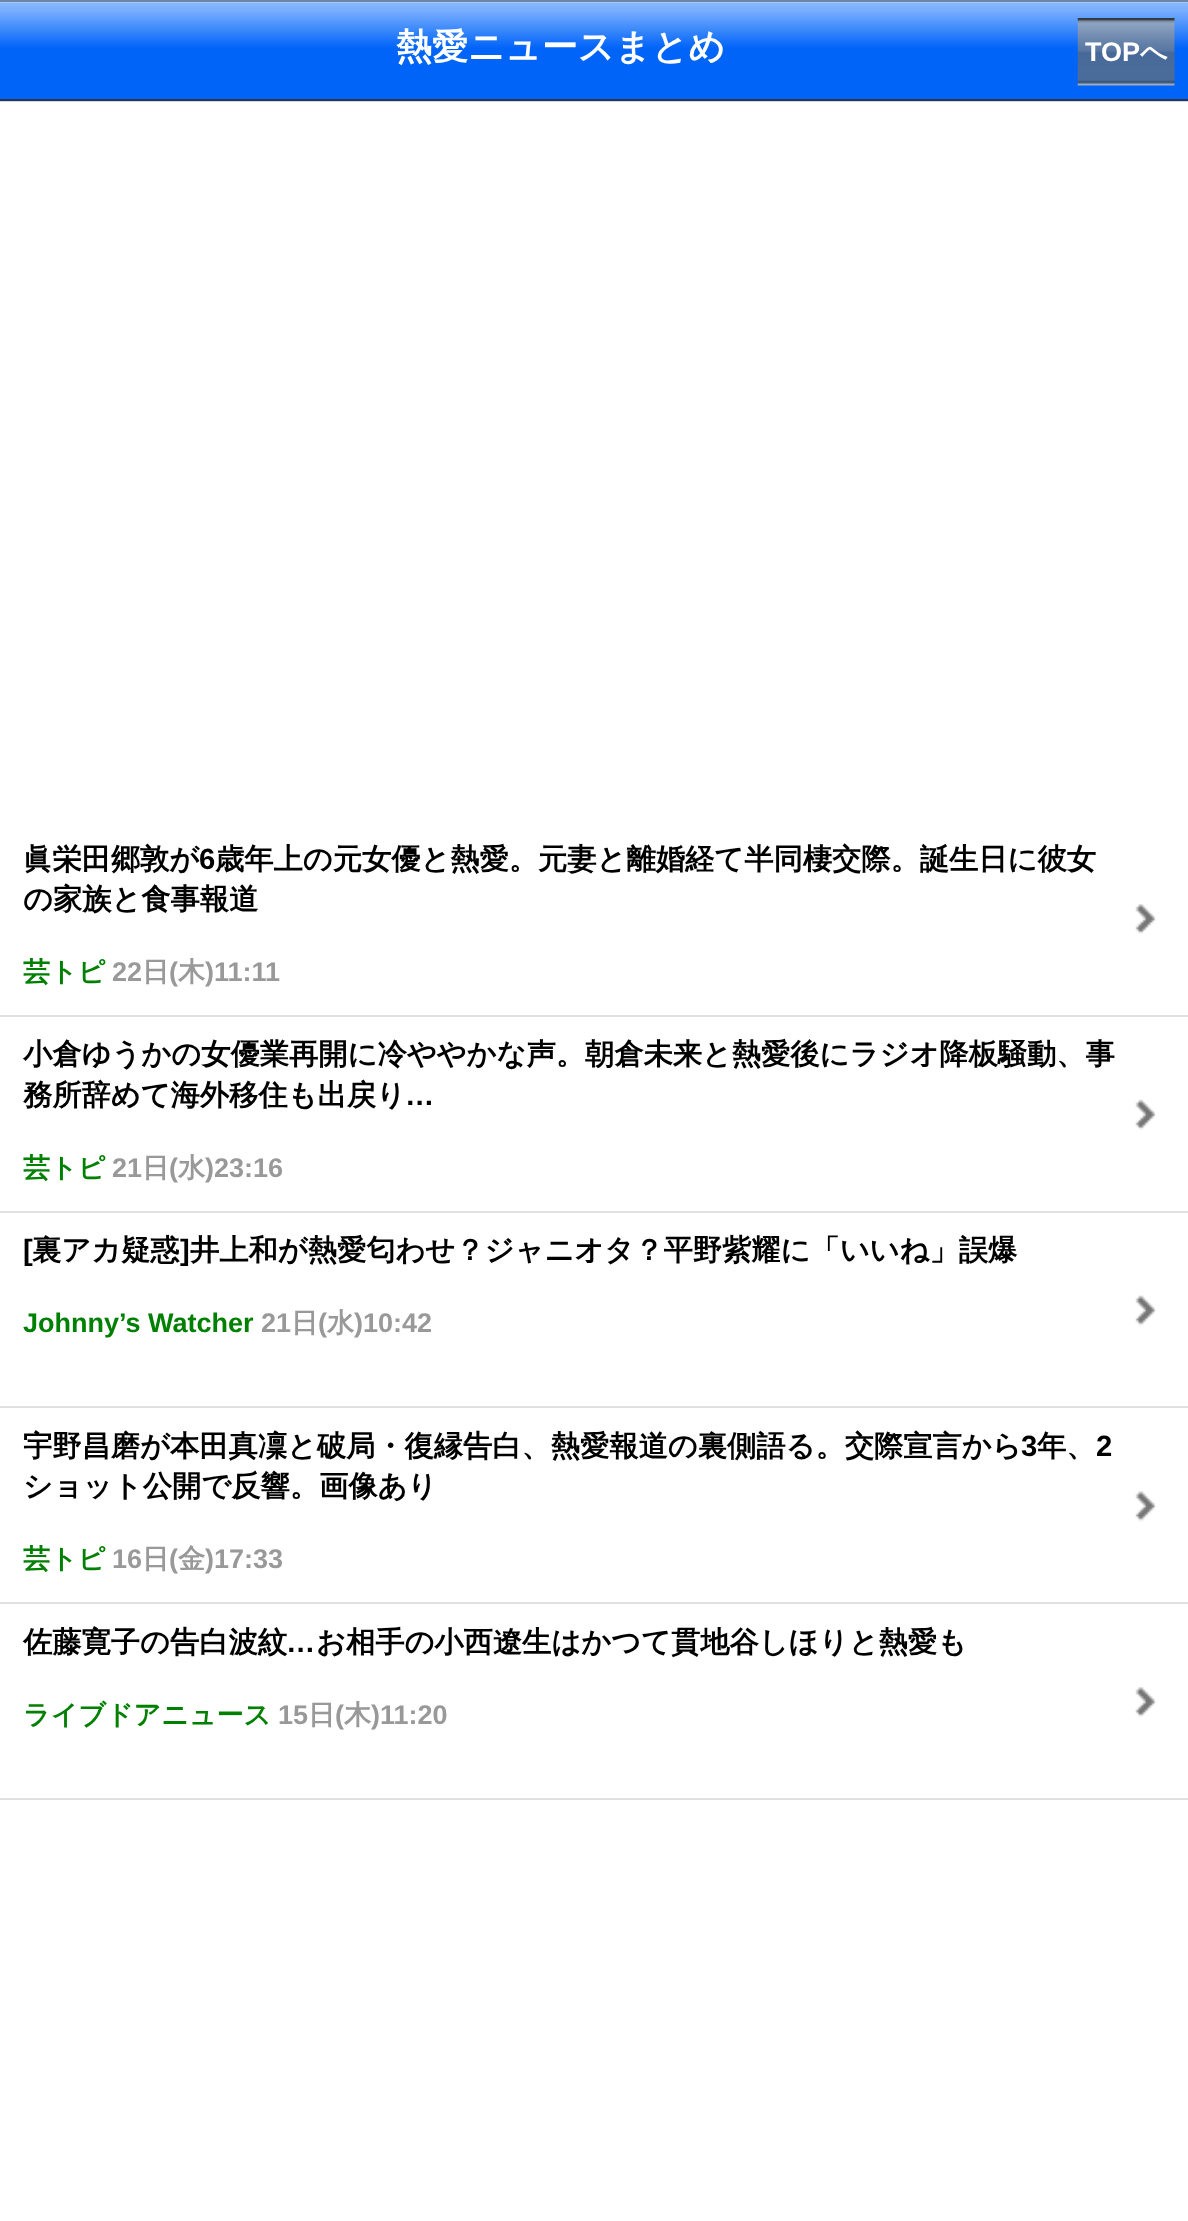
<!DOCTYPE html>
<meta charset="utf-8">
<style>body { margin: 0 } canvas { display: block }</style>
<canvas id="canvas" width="1188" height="2221"></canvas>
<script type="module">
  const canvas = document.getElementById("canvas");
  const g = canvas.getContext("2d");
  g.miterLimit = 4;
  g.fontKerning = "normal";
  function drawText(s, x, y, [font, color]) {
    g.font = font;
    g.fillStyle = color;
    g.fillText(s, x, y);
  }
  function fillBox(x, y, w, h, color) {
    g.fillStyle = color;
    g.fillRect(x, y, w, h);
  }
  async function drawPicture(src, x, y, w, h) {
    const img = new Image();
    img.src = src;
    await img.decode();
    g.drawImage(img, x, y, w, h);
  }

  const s1 = ["bold 36px WenQuanYi Zen Hei", "#FFFFFF"];
  const s2 = ["bold 27px Liberation Sans", "#FFFFFF"];
  const s3 = ["bold 27px WenQuanYi Zen Hei", "#FFFFFF"];
  const s4 = ["bold 29.25px WenQuanYi Zen Hei", "#000000"];
  const s5 = ["bold 29.25px Liberation Sans", "#000000"];
  const s6 = ["bold 27px WenQuanYi Zen Hei", "#008000"];
  const s7 = ["bold 27px Liberation Sans", "#999999"];
  const s8 = ["bold 27px WenQuanYi Zen Hei", "#999999"];
  const s9 = ["bold 27px Liberation Sans", "#008000"];

  fillBox(0, 0, 1188, 2221, "#FFFFFF");
  await drawPicture("pic1.png", 0, 2, 1188, 100);
  fillBox(0, 0, 1188, 2, "#6D84A2");
  fillBox(0, 99, 1188, 2, "#2D3642");
  drawText("熱愛ニュースまとめ", 396, 59, s1);
  await drawPicture("pic2.png", 1077, 18, 98, 68);
  drawText("TOP", 1085, 61, s2);
  drawText("へ", 1140, 61, s3);
  fillBox(0, 1015, 1188, 2, "#E0E0E0");
  await drawPicture("pic3.png", 1135, 904, 22, 30);
  drawText("眞栄田郷敦が", 23, 869, s4);
  drawText("6", 199, 869, s5);
  drawText("歳年上の元女優と熱愛。元妻と離婚経て半同棲交際。誕生日に彼女", 215, 869, s4);
  drawText("の家族と食事報道", 23, 909, s4);
  drawText("芸トピ", 23, 981, s6);
  drawText("22", 112, 981, s7);
  drawText("日", 142, 981, s8);
  drawText("(", 169, 981, s7);
  drawText("木", 178, 981, s8);
  drawText(")11:11", 205, 981, s7);
  fillBox(0, 1211, 1188, 2, "#E0E0E0");
  await drawPicture("pic4.png", 1135, 1099, 22, 31);
  drawText("小倉ゆうかの女優業再開に冷ややかな声。朝倉未来と熱愛後にラジオ降板騒動、事", 23, 1064, s4);
  drawText("務所辞めて海外移住も出戻り", 23, 1105, s4);
  drawText("…", 405, 1105, s5);
  drawText("芸トピ", 23, 1177, s6);
  drawText("21", 112, 1177, s7);
  drawText("日", 142, 1177, s8);
  drawText("(", 169, 1177, s7);
  drawText("水", 178, 1177, s8);
  drawText(")23:16", 205, 1177, s7);
  fillBox(0, 1406, 1188, 2, "#E0E0E0");
  await drawPicture("pic5.png", 1135, 1295, 22, 31);
  drawText("[", 23, 1260, s5);
  drawText("裏アカ疑惑", 32, 1260, s4);
  drawText("]", 180, 1260, s5);
  drawText("井上和が熱愛匂わせ？ジャニオタ？平野紫耀に「いいね」誤爆", 190, 1260, s4);
  drawText("Johnny’s Watcher", 23, 1332, s9);
  drawText("21", 261, 1332, s7);
  drawText("日", 291, 1332, s8);
  drawText("(", 318, 1332, s7);
  drawText("水", 327, 1332, s8);
  drawText(")10:42", 354, 1332, s7);
  fillBox(0, 1602, 1188, 2, "#E0E0E0");
  await drawPicture("pic6.png", 1135, 1491, 22, 31);
  drawText("宇野昌磨が本田真凜と破局・復縁告白、熱愛報道の裏側語る。交際宣言から", 23, 1456, s4);
  drawText("3", 1021, 1456, s5);
  drawText("年、", 1037, 1456, s4);
  drawText("2", 1096, 1456, s5);
  drawText("ショット公開で反響。画像あり", 23, 1496, s4);
  drawText("芸トピ", 23, 1568, s6);
  drawText("16", 112, 1568, s7);
  drawText("日", 142, 1568, s8);
  drawText("(", 169, 1568, s7);
  drawText("金", 178, 1568, s8);
  drawText(")17:33", 205, 1568, s7);
  fillBox(0, 1798, 1188, 2, "#E0E0E0");
  await drawPicture("pic3.png", 1135, 1687, 22, 30);
  drawText("佐藤寛子の告白波紋", 23, 1652, s4);
  drawText("…", 286, 1652, s5);
  drawText("お相手の小西遼生はかつて貫地谷しほりと熱愛も", 316, 1652, s4);
  drawText("ライブドアニュース", 23, 1724, s6);
  drawText("15", 278, 1724, s7);
  drawText("日", 308, 1724, s8);
  drawText("(", 335, 1724, s7);
  drawText("木", 344, 1724, s8);
  drawText(")11:20", 371, 1724, s7);
</script>
